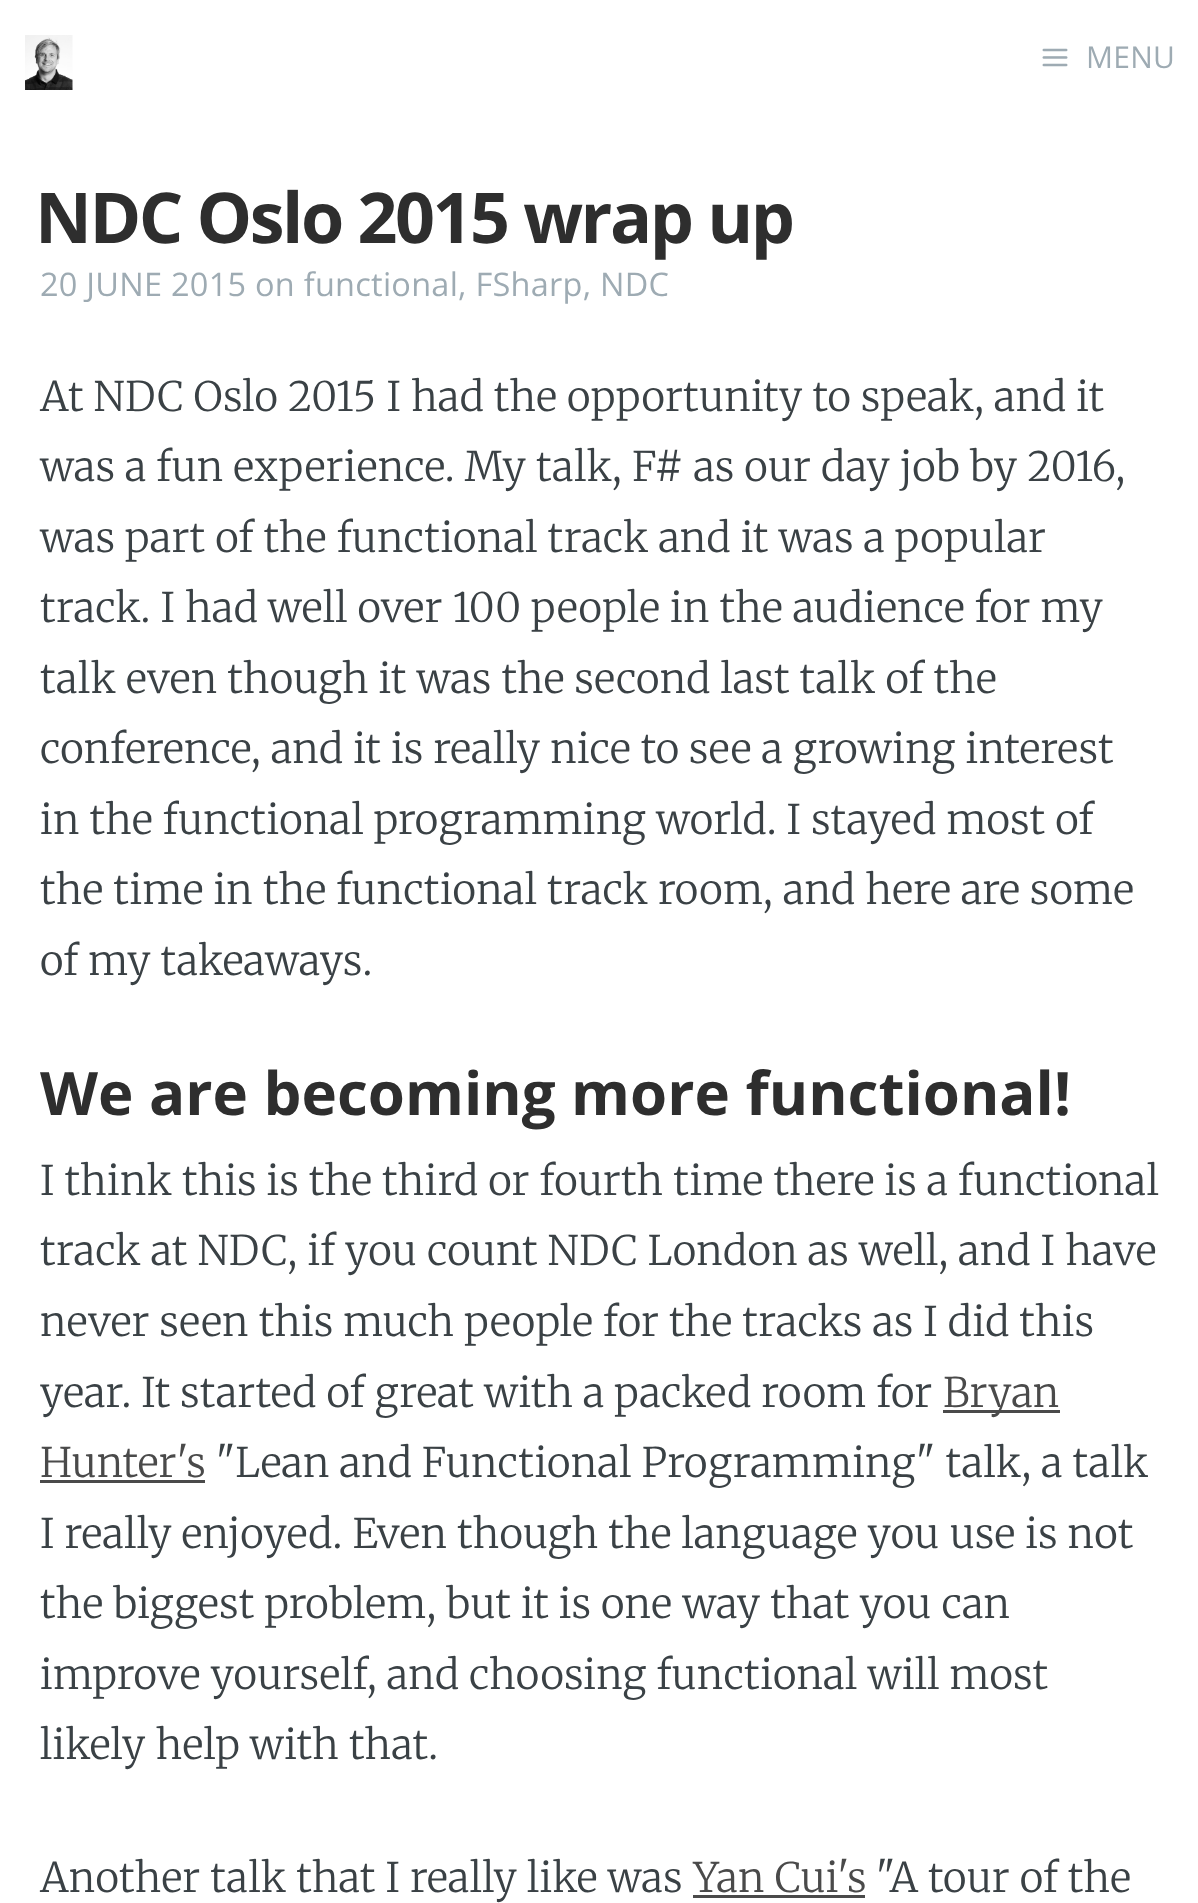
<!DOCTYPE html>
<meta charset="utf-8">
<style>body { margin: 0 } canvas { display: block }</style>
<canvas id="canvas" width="1198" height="1903"></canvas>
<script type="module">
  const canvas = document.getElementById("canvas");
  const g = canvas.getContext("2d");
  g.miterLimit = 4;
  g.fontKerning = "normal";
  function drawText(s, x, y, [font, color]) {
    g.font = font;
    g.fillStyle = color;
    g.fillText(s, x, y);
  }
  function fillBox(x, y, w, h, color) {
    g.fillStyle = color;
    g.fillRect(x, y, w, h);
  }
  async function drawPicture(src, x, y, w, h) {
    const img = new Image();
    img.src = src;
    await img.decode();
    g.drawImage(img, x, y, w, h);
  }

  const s1 = ["30px Open Sans", "#9EABB3"];
  const s2 = ["bold 70px Open Sans", "#2E2E2E"];
  const s3 = ["32.5px Open Sans", "#9EABB3"];
  const s4 = ["300 40.6px Merriweather", "#3A4145"];
  const s5 = ["bold 60px Open Sans", "#2E2E2E"];
  const s6 = ["300 40.6px Merriweather", "#4A4A4A"];

  fillBox(0, 0, 1198, 1903, "#FFFFFF");
  await drawPicture("pic1.png", 25, 35, 48, 55);
  await drawPicture("pic2.png", 1042, 48, 26, 19);
  g.letterSpacing = "0.25px";
  drawText("MENU", 1086, 68, s1);
  g.letterSpacing = "-2.5px";
  drawText("NDC Oslo 2015 wrap up", 35, 243, s2);
  g.letterSpacing = "0.25px";
  drawText("20 JUNE 2015 on functional, FSharp, NDC", 40, 296, s3);
  drawText("At NDC Oslo 2015 I had the opportunity to speak, and it", 40, 411, s4);
  drawText("was a fun experience. My talk, F# as our day job by 2016,", 40, 481, s4);
  drawText("was part of the functional track and it was a popular", 40, 552, s4);
  drawText("track. I had well over 100 people in the audience for my", 40, 622, s4);
  drawText("talk even though it was the second last talk of the", 40, 693, s4);
  drawText("conference, and it is really nice to see a growing interest", 40, 763, s4);
  drawText("in the functional programming world. I stayed most of", 40, 834, s4);
  drawText("the time in the functional track room, and here are some", 40, 904, s4);
  drawText("of my takeaways.", 40, 975, s4);
  g.letterSpacing = "0px";
  drawText("We are becoming more functional!", 40, 1115, s5);
  g.letterSpacing = "0.25px";
  drawText("I think this is the third or fourth time there is a functional", 40, 1195, s4);
  drawText("track at NDC, if you count NDC London as well, and I have", 40, 1265, s4);
  drawText("never seen this much people for the tracks as I did this", 40, 1336, s4);
  drawText("year. It started of great with a packed room for", 40, 1407, s4);
  fillBox(943, 1410, 117, 3, "#4A4A4A");
  drawText("Bryan", 943, 1407, s6);
  drawText("Hunter's", 40, 1477, s6);
  fillBox(40, 1480, 165, 3, "#4A4A4A");
  drawText("\"Lean and Functional Programming\" talk, a talk", 216, 1477, s4);
  drawText("I really enjoyed. Even though the language you use is not", 40, 1548, s4);
  drawText("the biggest problem, but it is one way that you can", 40, 1618, s4);
  drawText("improve yourself, and choosing functional will most", 40, 1689, s4);
  drawText("likely help with that.", 40, 1759, s4);
  drawText("Another talk that I really like was", 40, 1892, s4);
  drawText("Yan Cui's", 693, 1892, s6);
  fillBox(693, 1895, 172, 3, "#4A4A4A");
  drawText("\"A tour of the", 876, 1892, s4);
</script>
